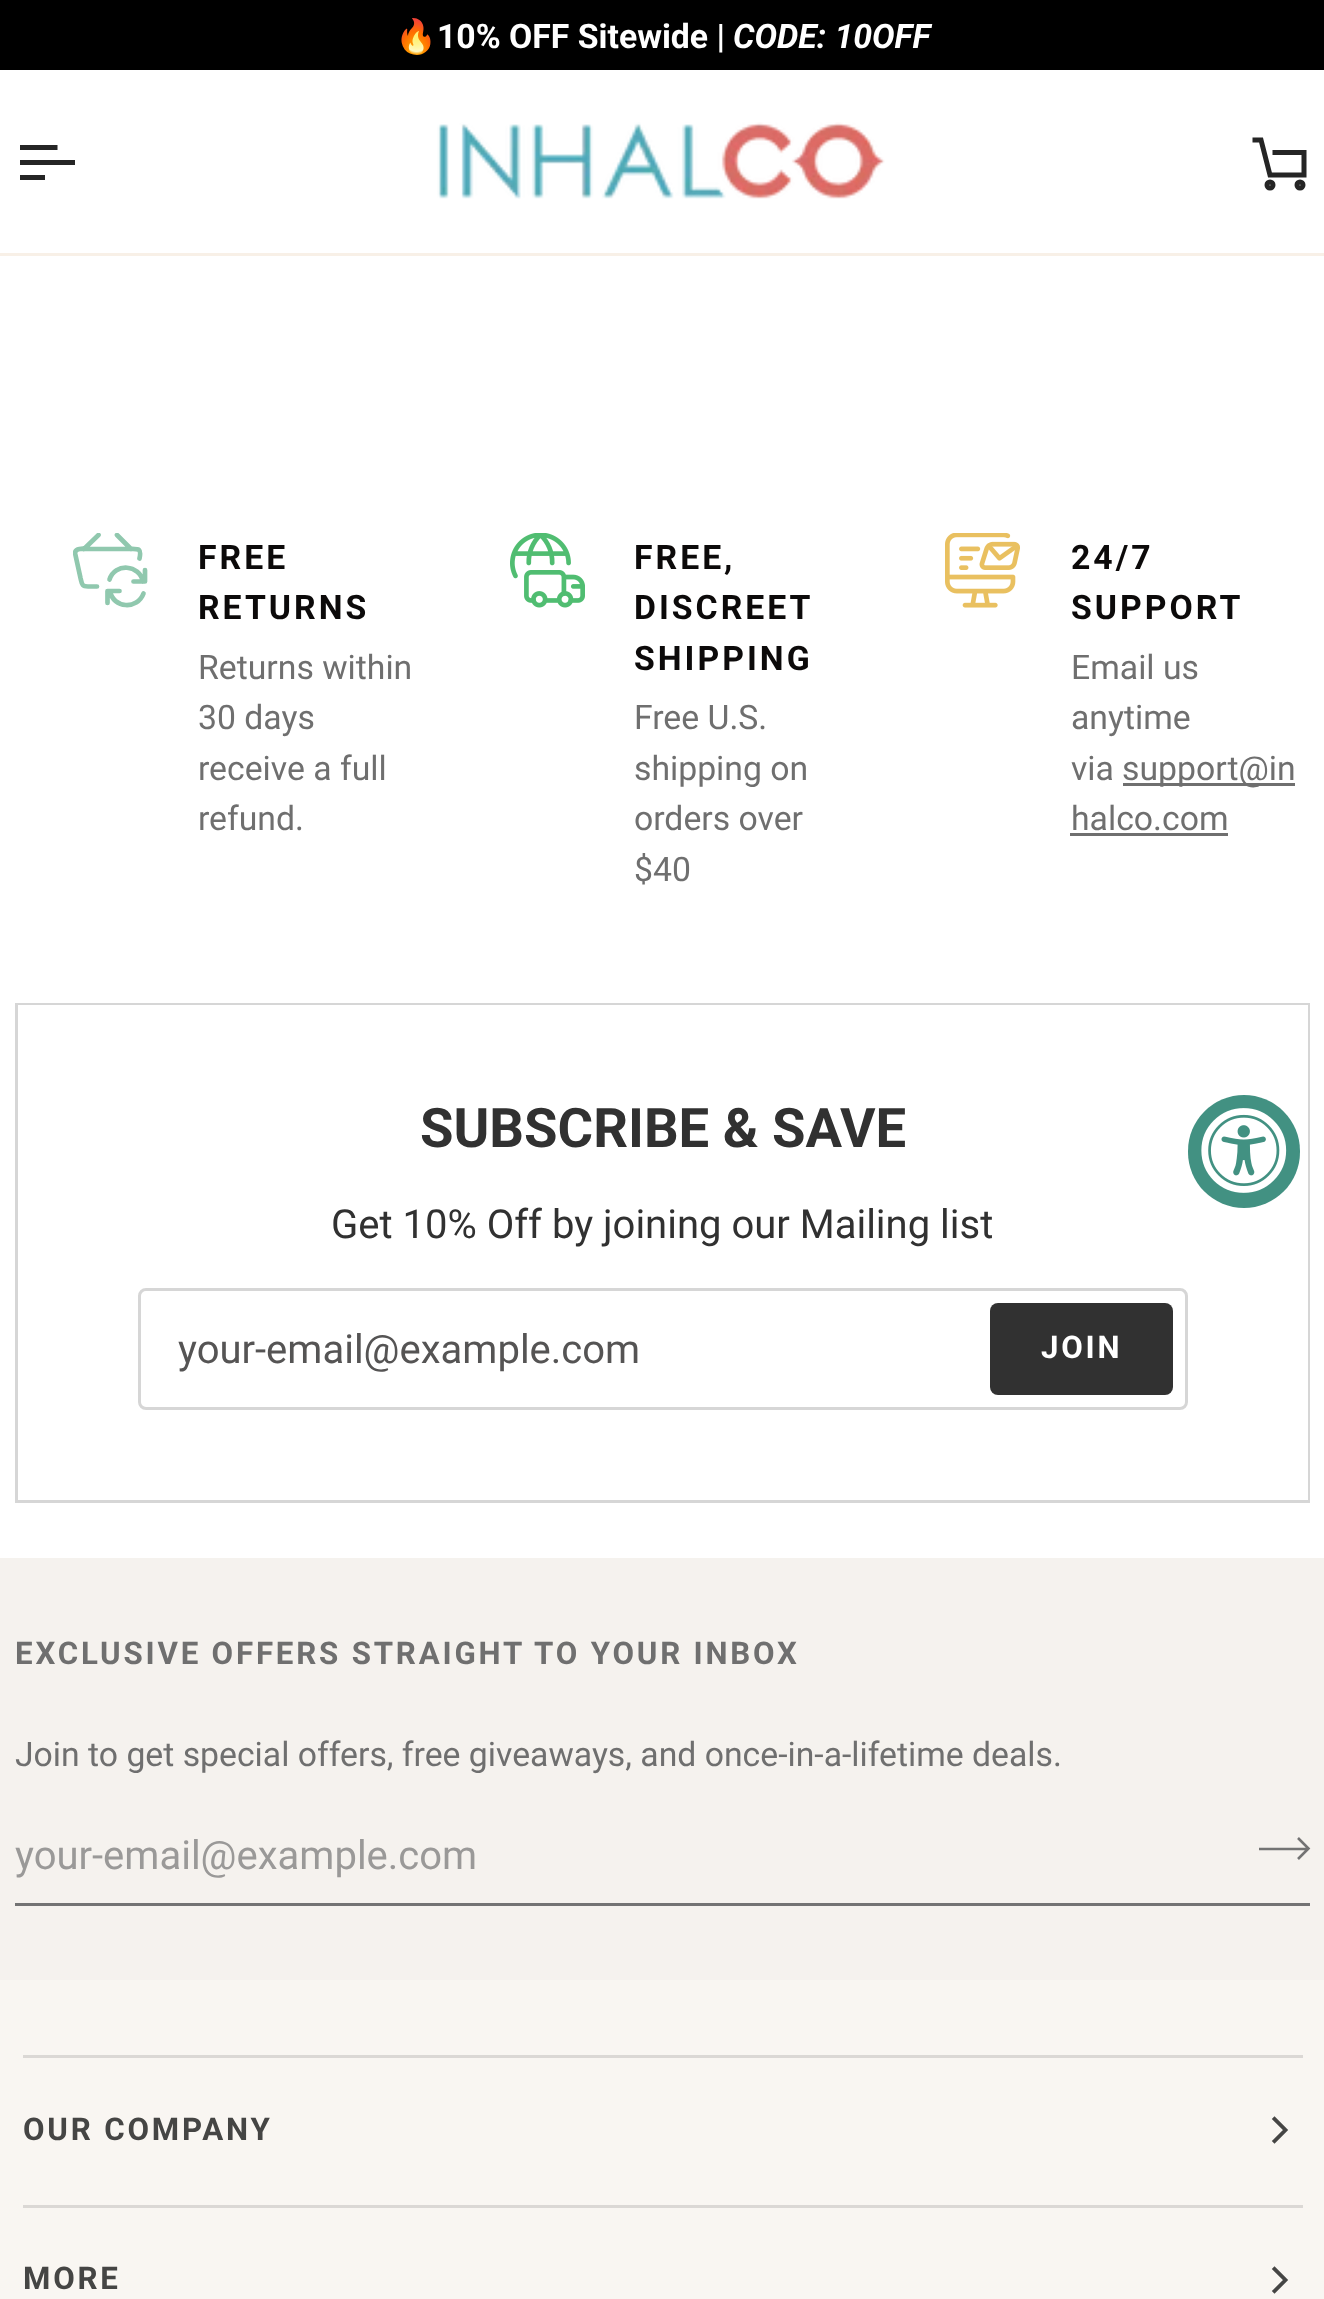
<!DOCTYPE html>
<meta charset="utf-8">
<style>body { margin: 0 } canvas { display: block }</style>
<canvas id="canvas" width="1324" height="2299"></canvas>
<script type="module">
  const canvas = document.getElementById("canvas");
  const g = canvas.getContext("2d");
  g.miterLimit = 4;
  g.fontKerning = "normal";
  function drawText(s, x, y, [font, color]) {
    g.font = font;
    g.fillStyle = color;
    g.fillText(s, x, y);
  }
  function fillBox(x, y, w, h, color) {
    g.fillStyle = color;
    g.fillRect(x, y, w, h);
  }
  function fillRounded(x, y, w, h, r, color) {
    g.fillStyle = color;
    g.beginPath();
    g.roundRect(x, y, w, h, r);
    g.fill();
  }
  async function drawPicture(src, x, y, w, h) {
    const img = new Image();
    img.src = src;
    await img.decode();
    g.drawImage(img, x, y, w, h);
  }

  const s1 = ["bold 33.75px Noto Color Emoji", "#FFFFFF"];
  const s2 = ["bold 33.75px Roboto", "#FFFFFF"];
  const s3 = ["italic bold 33.75px Roboto", "#FFFFFF"];
  const s4 = ["bold 33.75px Roboto", "#0C0A0A"];
  const s5 = ["33.75px Roboto", "#6F6F6F"];
  const s6 = ["bold 54.4px Roboto", "#313131"];
  const s7 = ["40px Roboto", "#313131"];
  const s8 = ["40px Roboto", "#555454"];
  const s9 = ["bold 31.25px Roboto", "#FFFFFF"];
  const s10 = ["bold 31.25px Roboto", "#6F6F6F"];
  const s11 = ["40px Roboto", "#9A9998"];
  const s12 = ["bold 31.25px Roboto", "#454544"];

  fillBox(0, 0, 1324, 2299, "#FFFFFF");
  fillBox(0, 253, 1324, 3, "#F8F0E7");
  fillBox(0, 0, 1324, 70, "#000000");
  drawText("🔥", 395, 48, s1);
  drawText("10% OFF Sitewide |", 437, 48, s2);
  drawText("CODE: 10OFF", 733, 48, s3);
  g.beginPath();
  g.moveTo(55, 147.5);
  g.lineTo(22.5, 147.5);
  g.moveTo(72.5, 162.5);
  g.lineTo(22.5, 162.5);
  g.moveTo(42.5, 177.5);
  g.lineTo(22.5, 177.5);
  g.strokeStyle = "#252525";
  g.lineWidth = 5;
  g.lineCap = "square";
  g.stroke();
  await drawPicture("pic1.png", 437, 122, 448, 77);
  g.beginPath();
  g.moveTo(1252.5, 140);
  g.lineTo(1261, 140);
  g.lineTo(1270, 175);
  g.lineTo(1304, 175);
  g.lineTo(1304, 152.5);
  g.lineTo(1272.5, 152.5);
  g.lineCap = "butt";
  g.stroke();
  g.beginPath();
  g.arc(1270, 185, 3, 0, Math.PI * 2);
  g.stroke();
  g.beginPath();
  g.arc(1300, 185, 3, 0, Math.PI * 2);
  g.stroke();
  g.beginPath();
  g.moveTo(119.5, 591);
  g.lineTo(107.5, 591);
  g.lineTo(107.5, 603);
  g.moveTo(143.5, 593.5);
  g.bezierCurveTo(137.5, 610, 113, 608.5, 110, 591);
  g.moveTo(133.5, 581.5);
  g.lineTo(145, 581.5);
  g.lineTo(145, 570);
  g.moveTo(109.5, 579.5);
  g.bezierCurveTo(115, 562.5, 139.5, 564.5, 143, 581.5);
  g.strokeStyle = "#90C8AE";
  g.lineWidth = 4.7;
  g.lineCap = "round";
  g.lineJoin = "round";
  g.setLineDash([312.5, 312.5]);
  g.stroke();
  g.save();
  g.beginPath();
  g.rect(73, 533, 75, 75);
  g.clip();
  g.beginPath();
  g.moveTo(97, 586.5);
  g.lineTo(88, 586.5);
  g.bezierCurveTo(81.5, 586.5, 82, 584, 80.5, 578);
  g.lineTo(75, 553);
  g.bezierCurveTo(75.5, 547, 85.5, 549, 89, 549);
  g.lineTo(126.5, 549);
  g.bezierCurveTo(137.5, 549, 142, 547, 139.5, 558.5);
  g.moveTo(84, 549);
  g.lineTo(98.5, 535);
  g.moveTo(131, 549);
  g.lineTo(117, 535);
  g.stroke();
  g.restore();
  g.letterSpacing = "3px";
  drawText("FREE", 198, 569, s4);
  drawText("RETURNS", 198, 619, s4);
  g.letterSpacing = "0px";
  drawText("Returns within", 198, 679, s5);
  drawText("30 days", 198, 729, s5);
  drawText("receive a full", 198, 780, s5);
  drawText("refund.", 198, 830, s5);
  await drawPicture("pic2.png", 510, 533, 75, 75);
  g.letterSpacing = "3px";
  drawText("FREE,", 634, 569, s4);
  drawText("DISCREET", 634, 619, s4);
  drawText("SHIPPING", 634, 670, s4);
  g.letterSpacing = "0px";
  drawText("Free U.S.", 634, 729, s5);
  drawText("shipping on", 634, 780, s5);
  drawText("orders over", 634, 830, s5);
  drawText("$40", 634, 881, s5);
  await drawPicture("pic3.png", 945, 533, 75, 75);
  g.letterSpacing = "3px";
  drawText("24/7", 1071, 569, s4);
  drawText("SUPPORT", 1071, 619, s4);
  g.letterSpacing = "0px";
  drawText("Email us", 1071, 679, s5);
  drawText("anytime", 1071, 729, s5);
  drawText("via", 1071, 780, s5);
  fillBox(1123, 783, 172, 3, "#6F6F6F");
  drawText("support@in", 1122, 780, s5);
  drawText("halco.com", 1071, 830, s5);
  fillBox(1070, 833, 158, 3, "#6F6F6F");
  g.strokeStyle = "#D6D6D6";
  g.lineWidth = 3;
  g.lineJoin = "miter";
  g.setLineDash([]);
  g.strokeRect(16.5, 1004.5, 1292, 497);
  fillBox(18, 1005, 1290, 495, "#FFFFFF");
  drawText("SUBSCRIBE & SAVE", 420, 1147, s6);
  drawText("Get 10% Off by joining our Mailing list", 331, 1238, s7);
  g.beginPath();
  g.roundRect(139.5, 1289.5, 1047, 119, 6.5);
  g.stroke();
  drawText("your-email@example.com", 178, 1363, s8);
  fillRounded(990, 1303, 183, 92, 8, "#313131");
  g.letterSpacing = "2.8px";
  drawText("JOIN", 1041, 1358, s9);
  fillRounded(1188, 1095, 112, 113, 56, "#429182");
  await drawPicture("pic4.png", 1201, 1108, 86, 85);
  fillBox(0, 1980, 1324, 319, "#F9F6F2");
  fillBox(0, 1558, 1324, 422, "#F5F2EE");
  drawText("EXCLUSIVE OFFERS STRAIGHT TO YOUR INBOX", 15, 1664, s10);
  g.letterSpacing = "0px";
  drawText("Join to get special offers, free giveaways, and once-in-a-lifetime deals.", 15, 1766, s5);
  fillBox(15, 1903, 1295, 3, "#737373");
  drawText("your-email@example.com", 15, 1869, s11);
  g.beginPath();
  g.moveTo(1298, 1838);
  g.lineTo(1308.5, 1848.5);
  g.lineTo(1298, 1859);
  g.moveTo(1259, 1849);
  g.lineTo(1308.5, 1849);
  g.strokeStyle = "#737373";
  g.lineWidth = 2.6;
  g.lineCap = "butt";
  g.stroke();
  fillBox(23, 2055, 1280, 3, "#DBD8D5");
  fillBox(23, 2205, 1280, 3, "#DBD8D5");
  g.letterSpacing = "2.8px";
  drawText("OUR COMPANY", 23, 2140, s12);
  g.beginPath();
  g.moveTo(1274.5, 2141);
  g.lineTo(1285.5, 2130);
  g.lineTo(1274.5, 2119);
  g.strokeStyle = "#454544";
  g.lineWidth = 3.8;
  g.lineCap = "square";
  g.stroke();
  drawText("MORE", 23, 2289, s12);
  g.beginPath();
  g.moveTo(1274.5, 2291);
  g.lineTo(1285.5, 2280);
  g.lineTo(1274.5, 2269);
  g.stroke();
</script>
